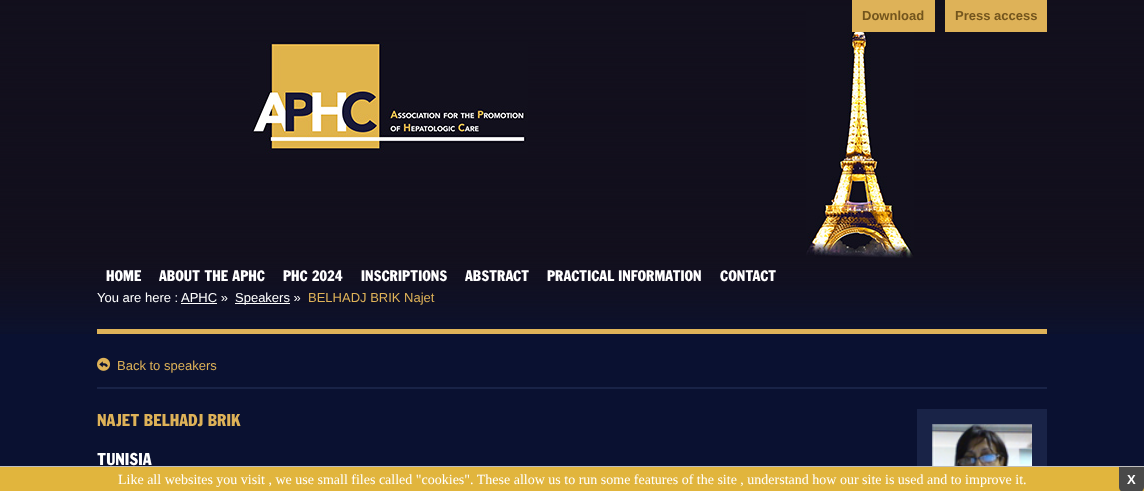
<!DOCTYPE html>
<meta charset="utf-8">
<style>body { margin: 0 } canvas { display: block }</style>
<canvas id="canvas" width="1144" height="491"></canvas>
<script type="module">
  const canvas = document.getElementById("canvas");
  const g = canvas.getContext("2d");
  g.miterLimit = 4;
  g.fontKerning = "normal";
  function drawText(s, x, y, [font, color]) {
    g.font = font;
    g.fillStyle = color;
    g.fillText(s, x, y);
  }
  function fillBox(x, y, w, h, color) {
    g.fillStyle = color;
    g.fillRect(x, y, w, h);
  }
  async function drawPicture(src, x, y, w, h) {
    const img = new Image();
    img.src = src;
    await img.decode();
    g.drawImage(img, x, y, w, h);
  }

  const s1 = ["bold 13px Liberation Sans", "#73551D"];
  const s2 = ["100 16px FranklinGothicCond", "#FFFFFF"];
  const s3 = ["13px Liberation Sans", "#FFFFFF"];
  const s4 = ["13px Liberation Sans", "#DEB258"];
  const s5 = ["100 18px FranklinGothicCond", "#DEB258"];
  const s6 = ["100 18px FranklinGothicCond", "#FFFFFF"];
  const s7 = ["14px Liberation Serif", "#FFFFFF"];
  const s8 = ["bold 13px Liberation Sans", "#FFFFFF"];

  fillBox(0, 0, 1144, 491, "#0A1131");
  await drawPicture("pic1.png", 0, 0, 1144, 334);
  await drawPicture("pic2.png", 806, 8, 108, 250);
  fillBox(97, 329, 950, 5, "#DEB258");
  fillBox(852, 0, 83, 32, "#DEB258");
  drawText("Download", 862, 20, s1);
  fillBox(945, 0, 102, 32, "#DEB258");
  drawText("Press access", 955, 20, s1);
  await drawPicture("pic3.png", 250, 42, 278, 112);
  drawText("HOME", 106, 281, s2);
  drawText("ABOUT THE APHC", 159, 281, s2);
  drawText("PHC 2024", 283, 281, s2);
  drawText("INSCRIPTIONS", 361, 281, s2);
  drawText("ABSTRACT", 465, 281, s2);
  drawText("PRACTICAL INFORMATION", 547, 281, s2);
  drawText("CONTACT", 720, 281, s2);
  drawText("You are here :", 97, 302, s3);
  drawText("APHC »", 181, 302, s3);
  fillBox(181, 303, 36, 1, "#FFFFFF");
  fillBox(235, 303, 55, 1, "#FFFFFF");
  drawText("Speakers »", 235, 302, s3);
  drawText("BELHADJ BRIK Najet", 308, 302, s4);
  fillBox(97, 387, 950, 2, "#192347");
  await drawPicture("pic4.png", 97, 357, 13, 14);
  drawText("Back to speakers", 117, 370, s4);
  drawText("NAJET BELHADJ BRIK", 97, 426, s5);
  fillBox(917, 409, 130, 57, "#192347");
  await drawPicture("pic5.png", 932, 424, 100, 42);
  drawText("TUNISIA", 97, 465, s6);
  fillBox(0, 467, 1144, 24, "#E1B53D");
  fillBox(0, 466, 1144, 1, "#BFBFBF");
  drawText("Like all websites you visit , we use small files called \"cookies\". These allow us to run some features of the site , understand how our site is used and to improve it.", 118, 484, s7);
  g.fillStyle = "#494949";
  g.beginPath();
  g.moveTo(1119, 467);
  g.lineTo(1144, 467);
  g.lineTo(1144, 487);
  g.bezierCurveTo(1144, 490, 1142, 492, 1139, 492);
  g.lineTo(1124, 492);
  g.bezierCurveTo(1121, 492, 1119, 490, 1119, 487);
  g.closePath();
  g.fill();
  drawText("X", 1127, 484, s8);
</script>
